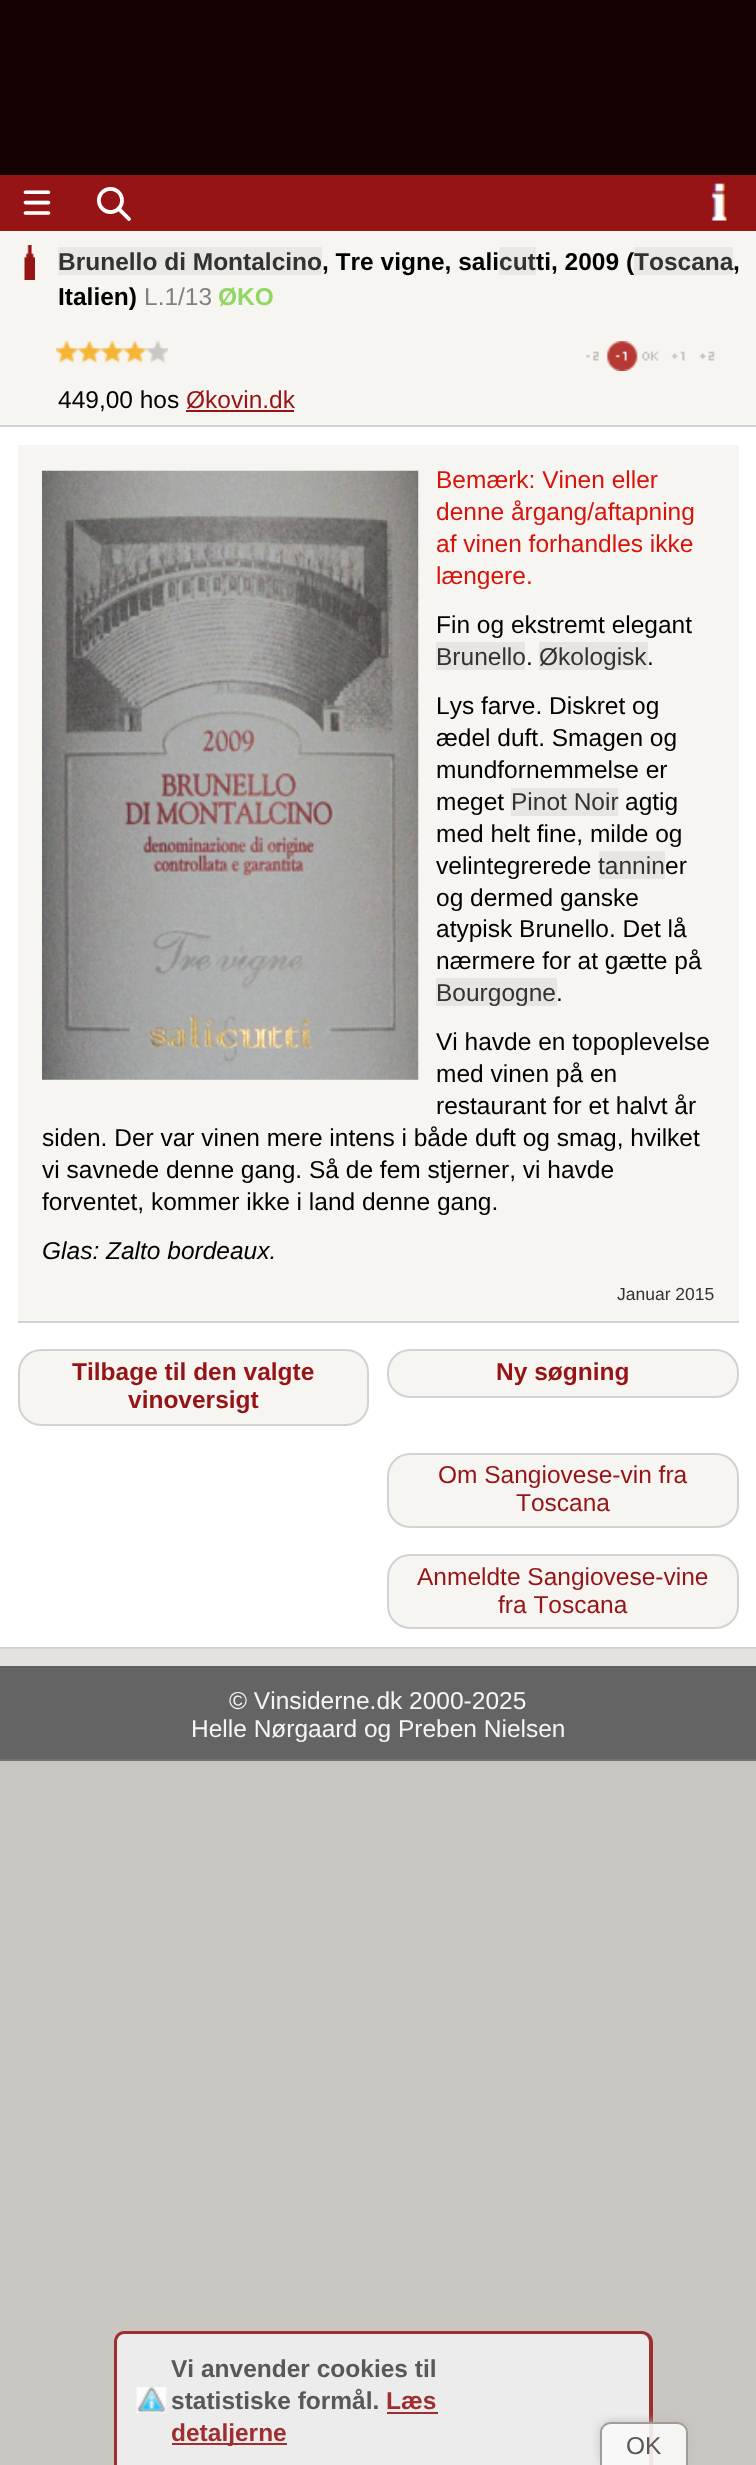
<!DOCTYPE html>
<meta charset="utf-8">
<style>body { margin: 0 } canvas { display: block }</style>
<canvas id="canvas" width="756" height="2465"></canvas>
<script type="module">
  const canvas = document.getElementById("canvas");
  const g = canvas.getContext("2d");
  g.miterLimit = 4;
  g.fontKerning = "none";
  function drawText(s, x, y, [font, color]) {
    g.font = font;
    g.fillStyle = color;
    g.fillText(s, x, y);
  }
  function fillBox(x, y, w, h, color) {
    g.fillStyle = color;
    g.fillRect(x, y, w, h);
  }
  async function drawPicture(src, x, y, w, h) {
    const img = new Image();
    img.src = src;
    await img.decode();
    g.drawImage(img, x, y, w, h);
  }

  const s1 = ["52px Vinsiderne", "#FFFFFF"];
  const s2 = ["bold 24.5px Liberation Sans", "#323232"];
  const s3 = ["bold 24.5px Liberation Sans", "#000000"];
  const s4 = ["24.5px Liberation Sans", "#808080"];
  const s5 = ["bold 24.5px Liberation Sans", "#91D763"];
  const s6 = ["24.5px Liberation Sans", "#000000"];
  const s7 = ["24.5px Liberation Sans", "#961416"];
  const s8 = ["24.5px Liberation Sans", "#D7140A"];
  const s9 = ["24.5px Liberation Sans", "#323232"];
  const s10 = ["italic 24.5px Liberation Sans", "#000000"];
  const s11 = ["17.5px Liberation Sans", "#323232"];
  const s12 = ["bold 24.5px Liberation Sans", "#961416"];
  const s13 = ["24.5px Liberation Sans", "#F5F5F5"];
  const s14 = ["bold 24.5px Liberation Sans", "#585857"];
  const s15 = ["bold 24.5px Liberation Sans", "#9E2F30"];
  const s16 = ["24.5px Liberation Sans", "#585857"];

  fillBox(0, 0, 756, 2465, "#CAC6C1");
  fillBox(0, 0, 756, 175, "#140202");
  fillBox(0, 175, 756, 56, "#961416");
  drawText("≡", 18, 214, s1);
  drawText("S", 92, 215, s1);
  await drawPicture("pic1.png", 710, 183, 18, 38);
  fillBox(0, 1649, 756, 17, "#E4E1DE");
  fillBox(0, 1666, 756, 2, "#5F5F5F");
  fillBox(0, 427, 756, 1220, "#FFFFFF");
  fillBox(0, 1647, 756, 2, "#D2D2D2");
  fillBox(0, 231, 756, 194, "#F6F5F1");
  await drawPicture("pic2.png", 24, 245, 11, 35);
  fillBox(58, 247, 264, 28, "#EAE8E5");
  drawText("Brunello di Montalcino", 58, 270, s2);
  drawText(", Tre vigne, sali", 322, 270, s3);
  fillBox(499, 247, 37, 28, "#EAE8E5");
  drawText("cut", 499, 270, s2);
  drawText("ti, 2009 (", 536, 270, s3);
  fillBox(634, 247, 99, 28, "#EAE8E5");
  drawText("Toscana", 634, 270, s2);
  drawText(",", 733, 270, s3);
  drawText("Italien)", 58, 305, s3);
  drawText("L.1/13", 144, 305, s4);
  drawText("ØKO︎", 218, 305, s5);
  await drawPicture("pic3.png", 56, 341, 112, 22);
  await drawPicture("pic4.png", 586, 341, 129, 30);
  fillBox(0, 425, 756, 2, "#D2D2D2");
  drawText("449,00 hos", 58, 408, s6);
  drawText("Økovin.dk", 186, 408, s7);
  fillBox(186, 410, 108, 2, "#961416");
  fillBox(18, 445, 721, 876, "#F6F5F1");
  fillBox(18, 1321, 721, 2, "#D2D2D2");
  await drawPicture("pic5.png", 42, 470, 377, 610);
  drawText("Bemærk: Vinen eller", 436, 488, s8);
  drawText("denne årgang/aftapning", 436, 520, s8);
  drawText("af vinen forhandles ikke", 436, 552, s8);
  drawText("længere.", 436, 584, s8);
  drawText("Fin og ekstremt elegant", 436, 633, s6);
  fillBox(436, 642, 89, 28, "#E7E5E1");
  drawText("Brunello", 436, 665, s9);
  drawText(".", 526, 665, s6);
  fillBox(539, 642, 109, 28, "#E7E5E1");
  drawText("Økologisk", 539, 665, s9);
  drawText(".", 647, 665, s6);
  drawText("Lys farve. Diskret og", 436, 714, s6);
  drawText("ædel duft. Smagen og", 436, 746, s6);
  drawText("mundfornemmelse er", 436, 778, s6);
  drawText("meget", 436, 810, s6);
  fillBox(511, 788, 107, 28, "#E7E5E1");
  drawText("Pinot Noir", 511, 810, s9);
  drawText("agtig", 625, 810, s6);
  drawText("med helt fine, milde og", 436, 842, s6);
  drawText("velintegrerede", 436, 874, s6);
  fillBox(599, 851, 66, 28, "#E7E5E1");
  drawText("tannin", 598, 874, s9);
  drawText("er", 665, 874, s6);
  drawText("og dermed ganske", 436, 906, s6);
  drawText("atypisk Brunello. Det lå", 436, 937, s6);
  drawText("nærmere for at gætte på", 436, 969, s6);
  fillBox(436, 978, 121, 28, "#E7E5E1");
  drawText("Bourgogne", 436, 1001, s9);
  drawText(".", 556, 1001, s6);
  drawText("Vi havde en topoplevelse", 436, 1050, s6);
  drawText("med vinen på en", 436, 1082, s6);
  drawText("restaurant for et halvt år", 436, 1114, s6);
  drawText("siden. Der var vinen mere intens i både duft og smag, hvilket", 42, 1146, s6);
  drawText("vi savnede denne gang. Så de fem stjerner, vi havde", 42, 1178, s6);
  drawText("forventet, kommer ikke i land denne gang.", 42, 1210, s6);
  drawText("Glas: Zalto bordeaux.", 42, 1259, s10);
  drawText("Januar 2015", 617, 1300, s11);
  g.fillStyle = "#F6F5F1";
  g.beginPath();
  g.roundRect(19, 1350, 349, 75, 22);
  g.fill();
  g.strokeStyle = "#D2D2D2";
  g.lineWidth = 2;
  g.stroke();
  drawText("Tilbage til den valgte", 72, 1380, s12);
  drawText("vinoversigt", 128, 1408, s12);
  g.fillStyle = "#F6F5F1";
  g.beginPath();
  g.roundRect(388, 1350, 350, 47, 22);
  g.fill();
  g.stroke();
  drawText("Ny søgning", 496, 1380, s12);
  g.fillStyle = "#F6F5F1";
  g.beginPath();
  g.roundRect(388, 1454, 350, 73, 22);
  g.fill();
  g.stroke();
  drawText("Om Sangiovese-vin fra", 438, 1483, s7);
  drawText("Toscana", 516, 1511, s7);
  g.fillStyle = "#F6F5F1";
  g.beginPath();
  g.roundRect(388, 1555, 350, 73, 22);
  g.fill();
  g.stroke();
  drawText("Anmeldte Sangiovese-vine", 417, 1585, s7);
  drawText("fra Toscana", 498, 1613, s7);
  fillBox(0, 1668, 756, 91, "#646464");
  fillBox(0, 1759, 756, 2, "#737373");
  drawText("© Vinsiderne.dk 2000-2025", 229, 1709, s13);
  drawText("Helle Nørgaard og Preben Nielsen", 191, 1737, s13);
  g.fillStyle = "#EDECEC";
  g.beginPath();
  g.moveTo(125, 2331);
  g.lineTo(642, 2331);
  g.bezierCurveTo(648, 2331, 653, 2336, 653, 2342);
  g.lineTo(653, 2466);
  g.lineTo(114, 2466);
  g.lineTo(114, 2342);
  g.bezierCurveTo(114, 2336, 119, 2331, 125, 2331);
  g.closePath();
  g.fill();
  g.fillStyle = "#9E2F30";
  g.beginPath();
  g.moveTo(124, 2331);
  g.lineTo(642, 2331);
  g.bezierCurveTo(648, 2331, 653, 2336, 653, 2342);
  g.lineTo(653, 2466);
  g.lineTo(114, 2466);
  g.lineTo(114, 2342);
  g.bezierCurveTo(114, 2336, 118, 2331, 124, 2331);
  g.closePath();
  g.moveTo(124, 2334);
  g.lineTo(642, 2334);
  g.bezierCurveTo(646, 2334, 649, 2338, 649, 2342);
  g.lineTo(649, 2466);
  g.lineTo(117, 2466);
  g.lineTo(117, 2342);
  g.bezierCurveTo(117, 2338, 120, 2334, 124, 2334);
  g.closePath();
  g.fill("evenodd");
  await drawPicture("pic6.png", 136, 2387, 31, 26);
  drawText("Vi anvender cookies til", 171, 2377, s14);
  drawText("statistiske formål.", 171, 2409, s14);
  drawText("Læs", 386, 2409, s15);
  fillBox(387, 2412, 51, 2, "#9E2F30");
  fillBox(172, 2443, 115, 2, "#9E2F30");
  drawText("detaljerne", 171, 2441, s15);
  g.save();
  g.beginPath();
  g.moveTo(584, 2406);
  g.lineTo(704, 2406);
  g.lineTo(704, 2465);
  g.lineTo(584, 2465);
  g.closePath();
  g.moveTo(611, 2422);
  g.lineTo(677, 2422);
  g.bezierCurveTo(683, 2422, 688, 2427, 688, 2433);
  g.lineTo(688, 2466);
  g.lineTo(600, 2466);
  g.lineTo(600, 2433);
  g.bezierCurveTo(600, 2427, 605, 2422, 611, 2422);
  g.closePath();
  g.clip("evenodd");
  g.fillStyle = "rgba(187, 187, 187, 0.9)";
  g.filter = "blur(5px)";
  g.beginPath();
  g.roundRect(600, 2422, 88, 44, 11);
  g.fill();
  g.filter = "none";
  g.restore();
  g.fillStyle = "rgba(250, 250, 250, 0.9)";
  g.beginPath();
  g.moveTo(611, 2422);
  g.lineTo(677, 2422);
  g.bezierCurveTo(683, 2422, 688, 2427, 688, 2433);
  g.lineTo(688, 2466);
  g.lineTo(600, 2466);
  g.lineTo(600, 2433);
  g.bezierCurveTo(600, 2427, 605, 2422, 611, 2422);
  g.closePath();
  g.fill();
  g.fillStyle = "rgba(147, 148, 140, 0.9)";
  g.beginPath();
  g.moveTo(611, 2422);
  g.lineTo(677, 2422);
  g.bezierCurveTo(683, 2422, 688, 2427, 688, 2432);
  g.lineTo(688, 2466);
  g.lineTo(600, 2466);
  g.lineTo(600, 2432);
  g.bezierCurveTo(600, 2427, 605, 2422, 611, 2422);
  g.closePath();
  g.moveTo(611, 2424);
  g.lineTo(677, 2424);
  g.bezierCurveTo(682, 2424, 686, 2428, 686, 2432);
  g.lineTo(686, 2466);
  g.lineTo(602, 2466);
  g.lineTo(602, 2432);
  g.bezierCurveTo(602, 2428, 606, 2424, 611, 2424);
  g.closePath();
  g.fill("evenodd");
  drawText("OK", 626, 2454, s16);
</script>
